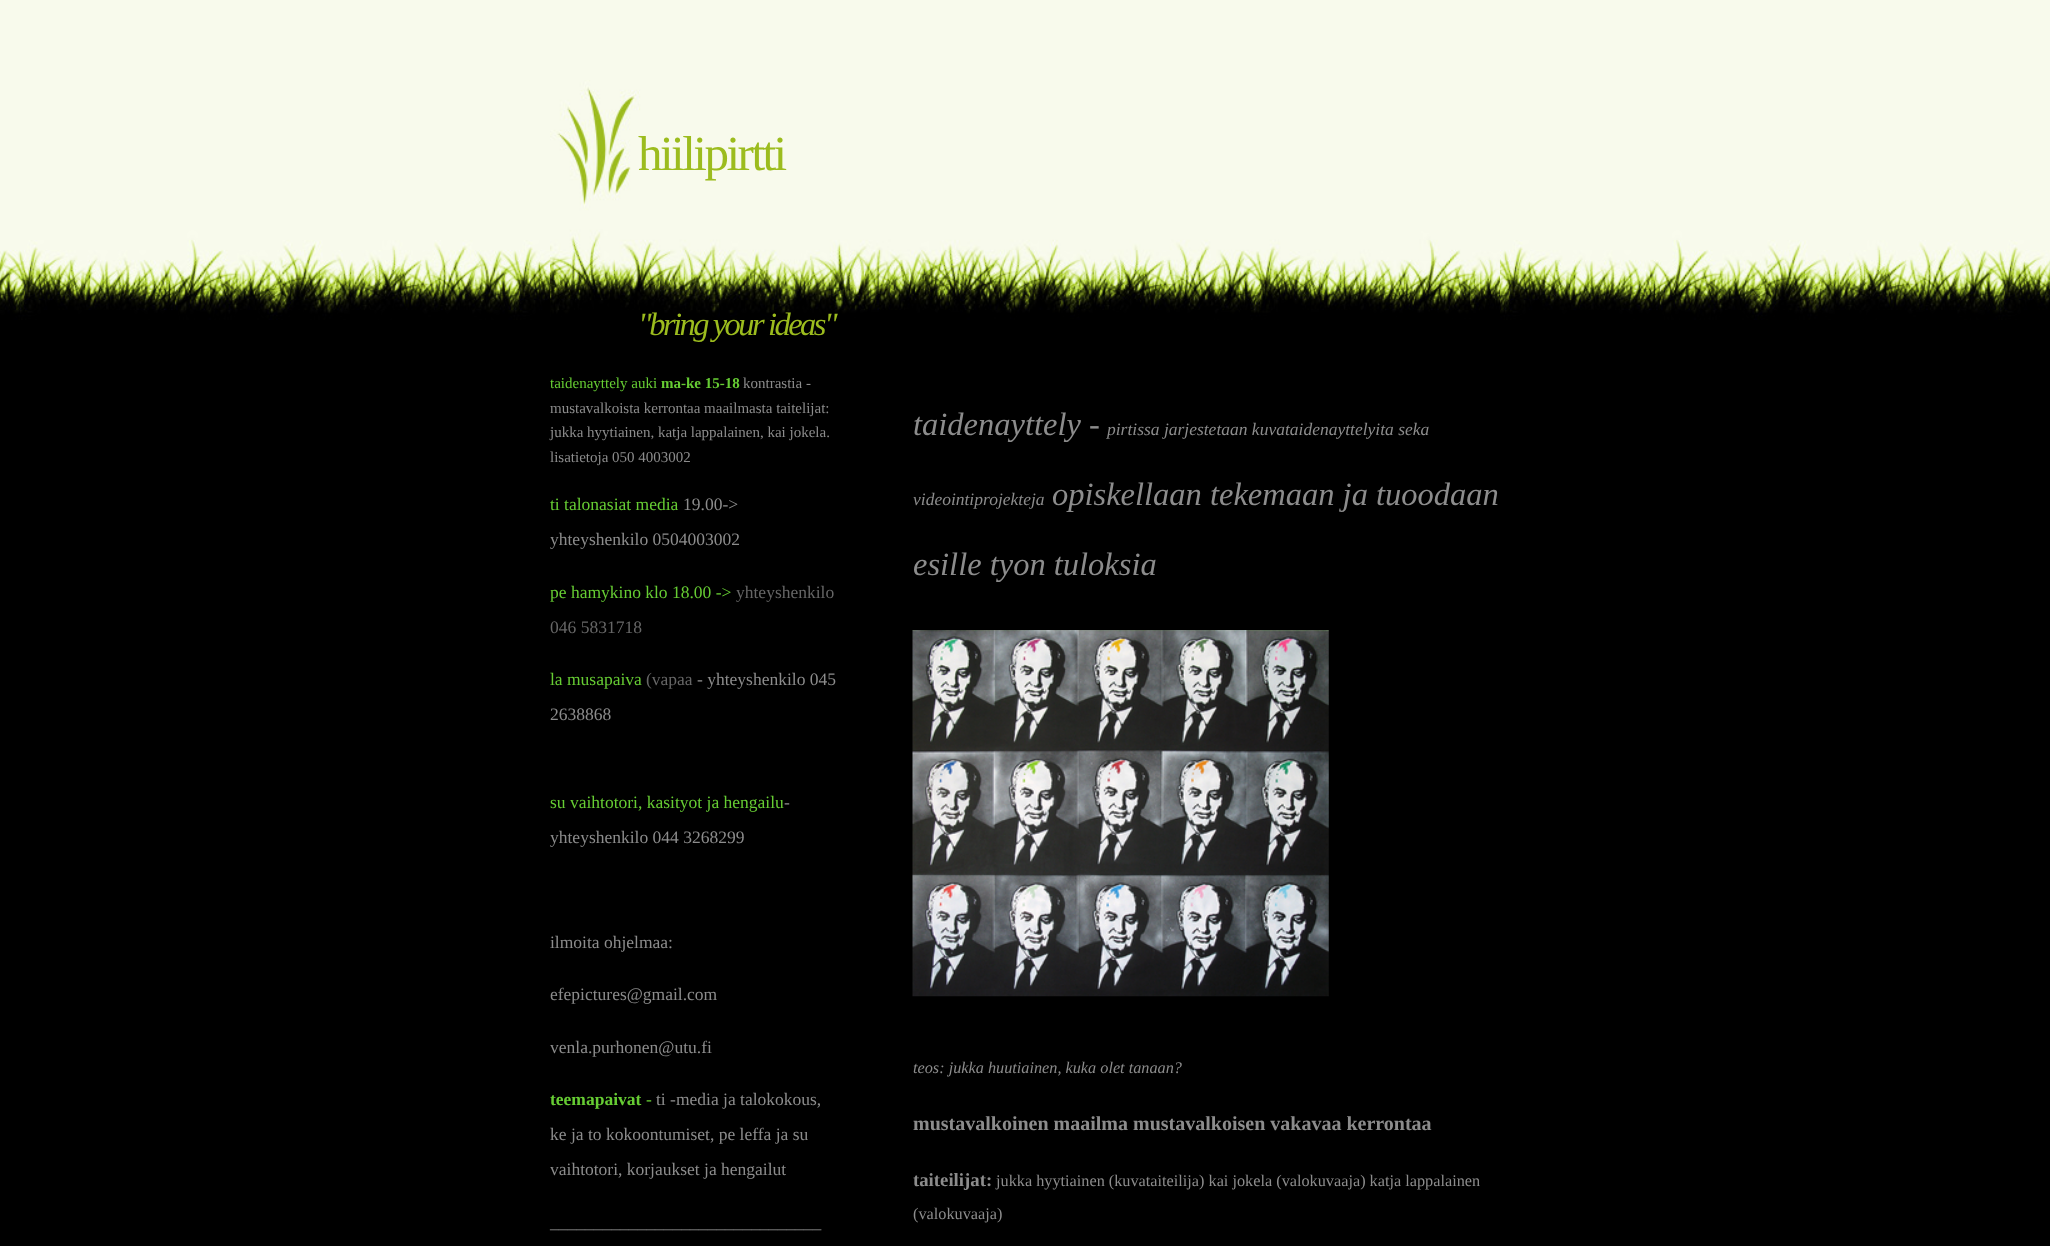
<!DOCTYPE html>
<meta charset="utf-8">
<style>body { margin: 0 } canvas { display: block }</style>
<canvas id="canvas" width="2050" height="1246"></canvas>
<script type="module">
  const canvas = document.getElementById("canvas");
  const g = canvas.getContext("2d");
  g.miterLimit = 4;
  g.fontKerning = "normal";
  function drawText(s, x, y, [font, color]) {
    g.font = font;
    g.fillStyle = color;
    g.fillText(s, x, y);
  }
  function fillBox(x, y, w, h, color) {
    g.fillStyle = color;
    g.fillRect(x, y, w, h);
  }
  async function drawPicture(src, x, y, w, h) {
    const img = new Image();
    img.src = src;
    await img.decode();
    g.drawImage(img, x, y, w, h);
  }

  const s1 = ["49px Liberation Serif", "#9CBC1E"];
  const s2 = ["italic 32.5px Liberation Serif", "#9CBC1E"];
  const s3 = ["15px Liberation Serif", "#66CC33"];
  const s4 = ["bold 15px Liberation Serif", "#66CC33"];
  const s5 = ["15px Liberation Serif", "#8C8C8C"];
  const s6 = ["17.5px Liberation Serif", "#66CC33"];
  const s7 = ["17.5px Liberation Serif", "#8C8C8C"];
  const s8 = ["17.5px Liberation Serif", "#666666"];
  const s9 = ["bold 17.5px Liberation Serif", "#66CC33"];
  const s10 = ["italic 32.5px Liberation Serif", "#8C8C8C"];
  const s11 = ["italic 17.5px Liberation Serif", "#8C8C8C"];
  const s12 = ["italic 16.25px Liberation Serif", "#8C8C8C"];
  const s13 = ["bold 20px Liberation Serif", "#8C8C8C"];
  const s14 = ["bold 18.75px Liberation Serif", "#8C8C8C"];
  const s15 = ["16.25px Liberation Serif", "#8C8C8C"];

  fillBox(0, 0, 2050, 1246, "#000000");
  await drawPicture("pic1.png", 0, 0, 2050, 320);
  await drawPicture("pic2.png", 550, 80, 950, 240);
  g.letterSpacing = "-2.5px";
  drawText("hiilipirtti", 638, 170, s1);
  drawText("\"bring your ideas\"", 638, 335, s2);
  g.letterSpacing = "0px";
  drawText("taidenayttely auki", 550, 388, s3);
  drawText("ma-ke 15-18", 661, 388, s4);
  drawText("kontrastia -", 743, 388, s5);
  drawText("mustavalkoista kerrontaa maailmasta taitelijat:", 550, 413, s5);
  drawText("jukka hyytiainen, katja lappalainen, kai jokela.", 550, 437, s5);
  drawText("lisatietoja 050 4003002", 550, 462, s5);
  drawText("ti talonasiat media", 550, 510, s6);
  drawText("19.00->", 683, 510, s7);
  drawText("yhteyshenkilo 0504003002", 550, 545, s7);
  drawText("pe hamykino klo 18.00 ->", 550, 598, s6);
  drawText("yhteyshenkilo", 736, 598, s8);
  drawText("046 5831718", 550, 633, s8);
  drawText("la musapaiva", 550, 685, s6);
  drawText("(vapaa", 646, 685, s8);
  drawText("- yhteyshenkilo 045", 697, 685, s7);
  drawText("2638868", 550, 720, s7);
  drawText("su vaihtotori, kasityot ja hengailu", 550, 808, s6);
  drawText("-", 784, 808, s7);
  drawText("yhteyshenkilo 044 3268299", 550, 843, s7);
  drawText("ilmoita ohjelmaa:", 550, 948, s7);
  drawText("efepictures@gmail.com", 550, 1000, s7);
  drawText("venla.purhonen@utu.fi", 550, 1053, s7);
  drawText("teemapaivat", 550, 1105, s9);
  drawText("-", 646, 1105, s6);
  drawText("ti -media ja talokokous,", 656, 1105, s7);
  drawText("ke ja to kokoontumiset, pe leffa ja su", 550, 1140, s7);
  drawText("vaihtotori, korjaukset ja hengailut", 550, 1175, s7);
  drawText("_______________________________", 550, 1228, s7);
  drawText("taidenayttely -", 913, 435, s10);
  drawText("pirtissa jarjestetaan kuvataidenayttelyita seka", 1107, 435, s11);
  drawText("videointiprojekteja", 913, 505, s11);
  drawText("opiskellaan tekemaan ja tuoodaan", 1052, 505, s10);
  drawText("esille tyon tuloksia", 913, 575, s10);
  await drawPicture("pic3.png", 912, 630, 417, 367);
  drawText("teos: jukka huutiainen, kuka olet tanaan?", 913, 1073, s12);
  drawText("mustavalkoinen maailma mustavalkoisen vakavaa kerrontaa", 913, 1130, s13);
  drawText("taiteilijat:", 913, 1186, s14);
  drawText("jukka hyytiainen (kuvataiteilija) kai jokela (valokuvaaja) katja lappalainen", 996, 1186, s15);
  drawText("(valokuvaaja)", 913, 1219, s15);
</script>
